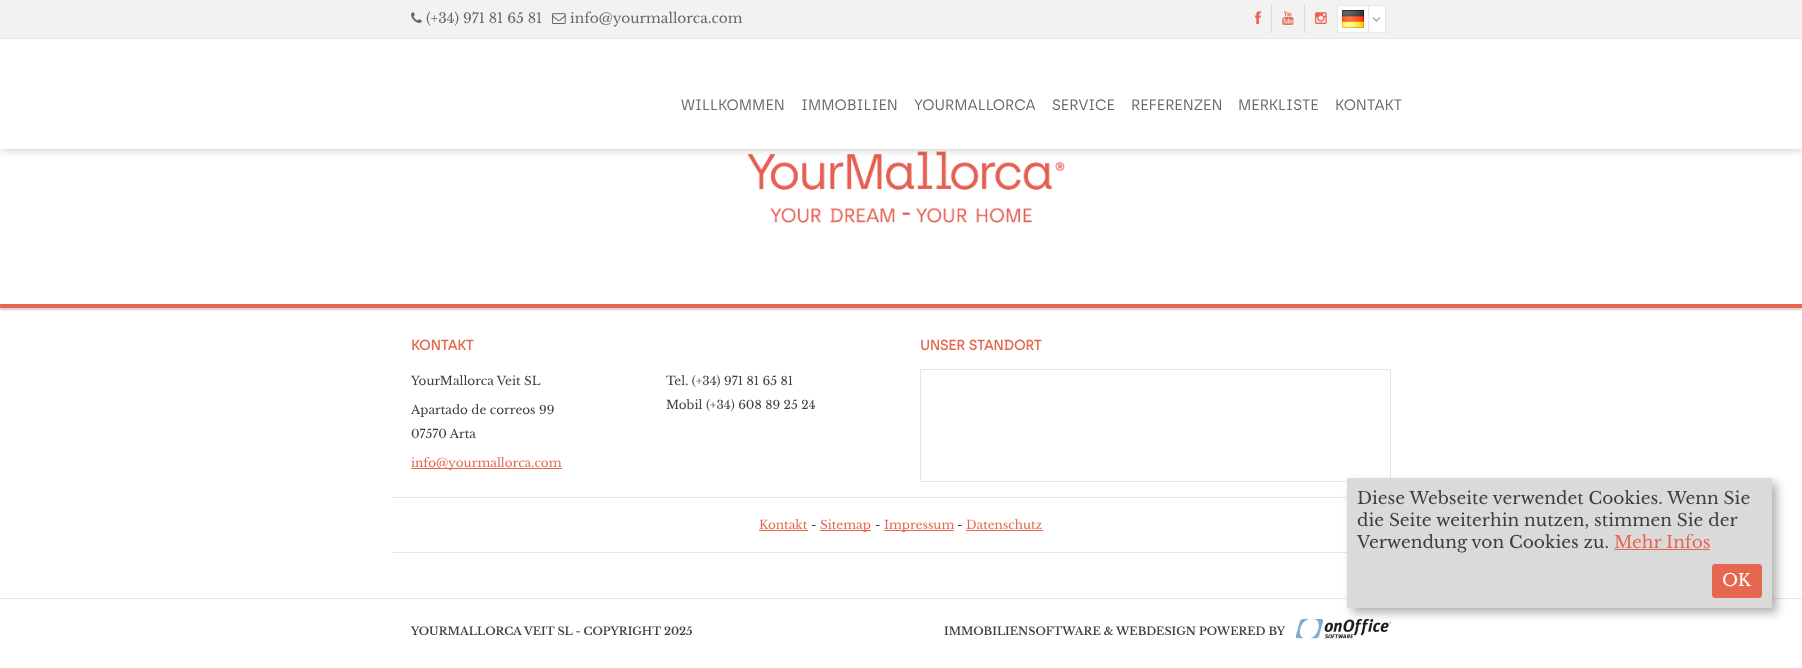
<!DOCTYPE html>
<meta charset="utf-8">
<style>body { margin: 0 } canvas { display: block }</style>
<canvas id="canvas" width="1802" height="668"></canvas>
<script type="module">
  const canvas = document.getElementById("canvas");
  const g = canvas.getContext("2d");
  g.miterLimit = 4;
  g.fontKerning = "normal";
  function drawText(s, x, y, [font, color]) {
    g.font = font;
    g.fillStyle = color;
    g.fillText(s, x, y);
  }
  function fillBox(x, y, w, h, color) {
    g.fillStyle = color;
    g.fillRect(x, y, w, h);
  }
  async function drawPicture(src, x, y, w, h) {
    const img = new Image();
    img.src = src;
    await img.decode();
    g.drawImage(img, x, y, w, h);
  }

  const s1 = ["13.75px Libre Baskerville", "#686868"];
  const s2 = ["15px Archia", "#686868"];
  const s3 = ["bold 14px Archia", "#E66750"];
  const s4 = ["12px Libre Baskerville", "#3E3E3E"];
  const s5 = ["12px Libre Baskerville", "#E66750"];
  const s6 = ["17px Libre Baskerville", "#3E3E3E"];
  const s7 = ["17px Libre Baskerville", "#E66750"];
  const s8 = ["17px Libre Baskerville", "#FFFFFF"];
  const s9 = ["600 11px Libre Baskerville", "#3E3E3E"];

  fillBox(0, 0, 1802, 668, "#FFFFFF");
  await drawPicture("pic8.png", 747, 151, 318, 72);
  g.fillStyle = "rgba(0, 0, 0, 0.25)";
  g.filter = "blur(5px)";
  g.beginPath();
  g.rect(0, 39, 1802, 110);
  g.fill();
  g.filter = "none";
  fillBox(0, 0, 1802, 38, "#F2F2F2");
  fillBox(0, 38, 1802, 1, "#E6E6E6");
  await drawPicture("pic1.png", 411, 12, 11, 11);
  drawText("(+34) 971 81 65 81", 426, 23, s1);
  await drawPicture("pic2.png", 552, 13, 14, 11);
  drawText("info@yourmallorca.com", 570, 23, s1);
  fillBox(1271, 5, 1, 28, "#D9D9E1");
  await drawPicture("pic3.png", 1255, 11, 6, 13);
  fillBox(1304, 5, 1, 28, "#D9D9E1");
  await drawPicture("pic4.png", 1282, 11, 12, 14);
  await drawPicture("pic5.png", 1315, 12, 12, 12);
  g.fillStyle = "#FFFFFF";
  g.beginPath();
  g.rect(1337.5, 5.5, 31, 27);
  g.fill();
  g.strokeStyle = "#E6E6E6";
  g.stroke();
  await drawPicture("pic6.png", 1342, 10, 22, 18);
  fillBox(1369, 6, 16, 26, "#FFFFFF");
  fillBox(1369, 5, 17, 1, "#E6E6E6");
  fillBox(1385, 5, 1, 28, "#E6E6E6");
  fillBox(1369, 32, 17, 1, "#E6E6E6");
  await drawPicture("pic7.png", 1372, 17, 9, 5);
  fillBox(0, 39, 1802, 110, "#FFFFFF");
  drawText("WILLKOMMEN", 681, 110, s2);
  drawText("IMMOBILIEN", 801, 110, s2);
  drawText("YOURMALLORCA", 914, 110, s2);
  drawText("SERVICE", 1052, 110, s2);
  drawText("REFERENZEN", 1131, 110, s2);
  drawText("MERKLISTE", 1238, 110, s2);
  drawText("KONTAKT", 1335, 110, s2);
  g.fillStyle = "rgba(0, 0, 0, 0.2)";
  g.filter = "blur(1px)";
  g.beginPath();
  g.rect(0, 306, 1802, 4);
  g.fill();
  g.filter = "none";
  fillBox(0, 304, 1802, 4, "#E66750");
  drawText("KONTAKT", 411, 350, s3);
  drawText("YourMallorca Veit SL", 411, 385, s4);
  drawText("Apartado de correos 99", 411, 414, s4);
  drawText("07570 Arta", 411, 438, s4);
  fillBox(411, 468, 151, 1, "#E66750");
  drawText("info@yourmallorca.com", 411, 467, s5);
  drawText("UNSER STANDORT", 920, 350, s3);
  g.strokeRect(920.5, 369.5, 470, 112);
  drawText("Tel. (+34) 971 81 65 81", 666, 385, s4);
  drawText("Mobil (+34) 608 89 25 24", 666, 409, s4);
  fillBox(392, 497, 955, 1, "#E6E6E6");
  fillBox(392, 552, 955, 1, "#E6E6E6");
  drawText("Kontakt", 759, 529, s5);
  fillBox(759, 530, 49, 1, "#E66750");
  drawText("-", 811, 529, s4);
  fillBox(820, 530, 51, 1, "#E66750");
  drawText("Sitemap", 820, 529, s5);
  drawText("-", 875, 529, s4);
  fillBox(884, 530, 70, 1, "#E66750");
  drawText("Impressum", 884, 529, s5);
  drawText("-", 957, 529, s4);
  drawText("Datenschutz", 966, 529, s5);
  fillBox(966, 530, 77, 1, "#E66750");
  fillBox(0, 598, 1802, 1, "#E6E6E6");
  await drawPicture("pic9.png", 1296, 619, 95, 20);
  g.fillStyle = "rgba(0, 0, 0, 0.3)";
  g.filter = "blur(5px)";
  g.beginPath();
  g.rect(1352, 483, 425, 130);
  g.fill();
  g.filter = "none";
  fillBox(1347, 478, 425, 130, "#DADADA");
  drawText("Diese Webseite verwendet Cookies. Wenn Sie", 1357, 504, s6);
  drawText("die Seite weiterhin nutzen, stimmen Sie der", 1357, 526, s6);
  drawText("Verwendung von Cookies zu.", 1357, 548, s6);
  drawText("Mehr Infos", 1614, 548, s7);
  fillBox(1614, 549, 96, 1, "#E66750");
  g.beginPath();
  g.roundRect(1712.5, 564.5, 49, 33, 2.5);
  g.fill();
  g.strokeStyle = "#E66750";
  g.stroke();
  drawText("OK", 1722, 586, s8);
  drawText("YOURMALLORCA VEIT SL - COPYRIGHT 2025", 411, 635, s9);
  drawText("IMMOBILIENSOFTWARE & WEBDESIGN POWERED BY", 944, 635, s9);
</script>
